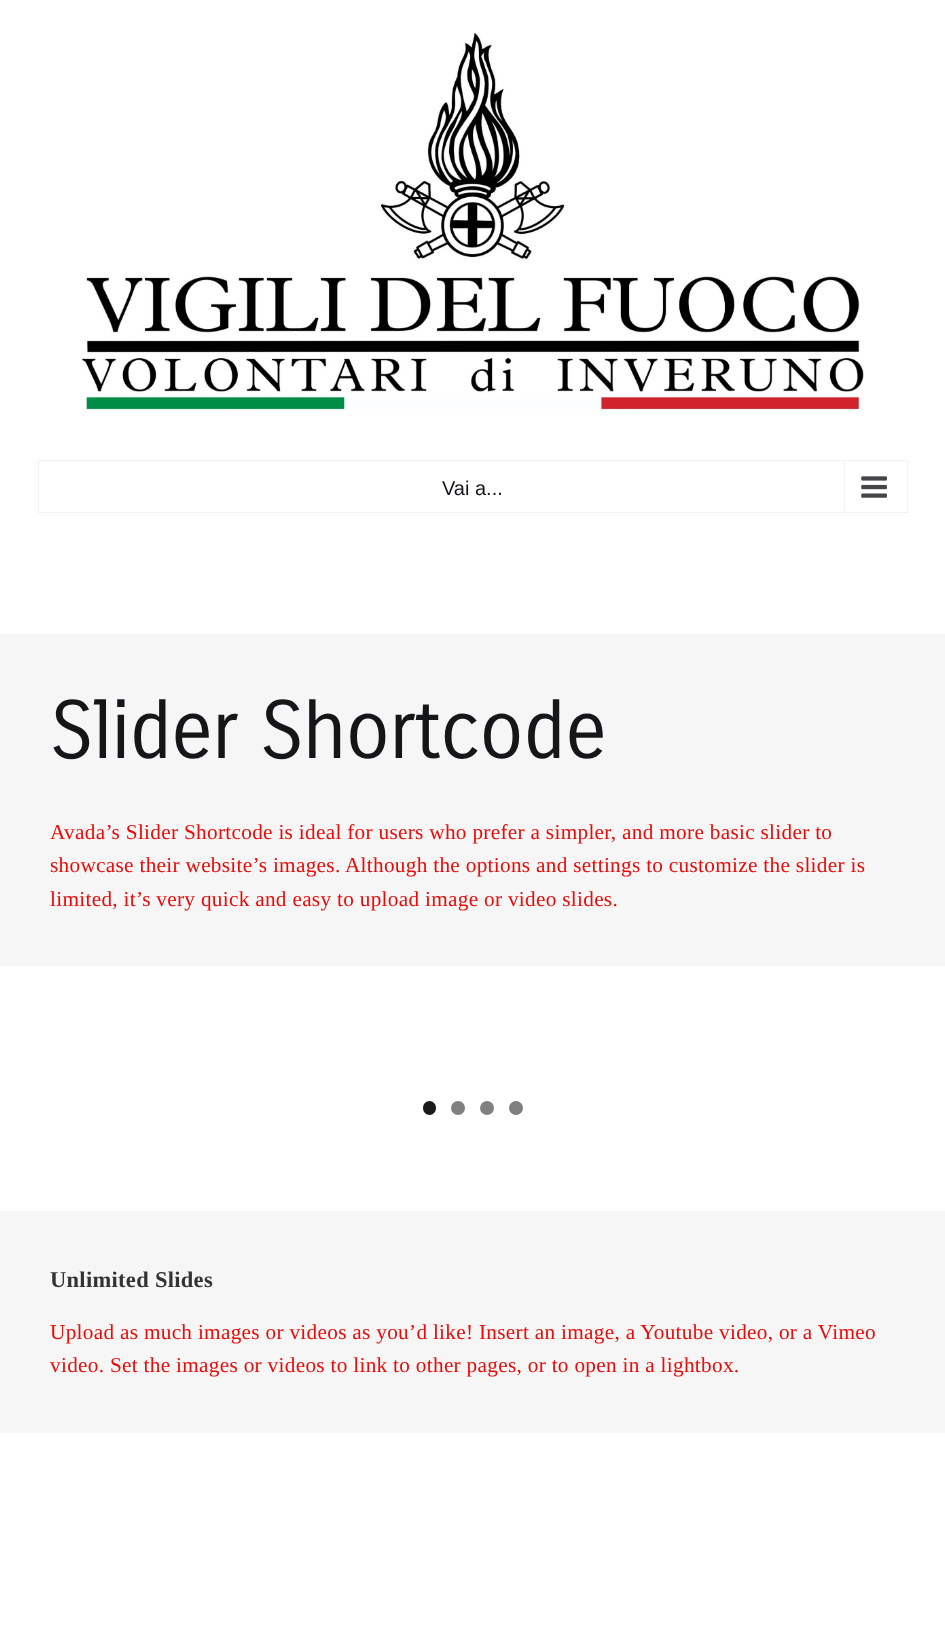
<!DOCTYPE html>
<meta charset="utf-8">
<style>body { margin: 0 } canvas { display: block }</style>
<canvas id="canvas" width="945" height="1635"></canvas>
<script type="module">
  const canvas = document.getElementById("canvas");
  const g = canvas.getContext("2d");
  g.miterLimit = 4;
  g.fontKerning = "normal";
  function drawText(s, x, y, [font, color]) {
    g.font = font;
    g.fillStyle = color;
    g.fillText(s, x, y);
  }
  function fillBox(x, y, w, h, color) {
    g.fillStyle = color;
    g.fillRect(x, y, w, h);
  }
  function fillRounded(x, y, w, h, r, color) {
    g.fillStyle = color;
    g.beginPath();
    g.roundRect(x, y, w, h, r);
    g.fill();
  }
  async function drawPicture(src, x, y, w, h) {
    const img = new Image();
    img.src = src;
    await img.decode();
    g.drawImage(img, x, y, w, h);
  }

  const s1 = ["20px Liberation Sans", "#141617"];
  const s2 = ["80px Carrois Gothic", "#141617"];
  const s3 = ["21.25px Liberation Serif", "#EA0A07"];
  const s4 = ["bold 22.5px Liberation Serif", "#333333"];

  fillBox(0, 0, 945, 1635, "#FFFFFF");
  await drawPicture("pic1.png", 81, 32, 783, 379);
  g.strokeStyle = "#F2F3F5";
  g.strokeRect(38.5, 460.5, 869, 52);
  drawText("Vai a...", 442, 495, s1);
  fillBox(844, 461, 1, 50, "#F2F3F5");
  await drawPicture("pic2.png", 861, 476, 26, 22);
  fillBox(0, 634, 945, 332, "#F6F6F6");
  g.letterSpacing = "-1.25px";
  drawText("Slider Shortcode", 50, 758, s2);
  g.letterSpacing = "0.3px";
  drawText("Avada’s Slider Shortcode is ideal for users who prefer a simpler, and more basic slider to", 50, 839, s3);
  drawText("showcase their website’s images. Although the options and settings to customize the slider is", 50, 872, s3);
  drawText("limited, it’s very quick and easy to upload image or video slides.", 50, 906, s3);
  fillRounded(423, 1101, 13, 14, 6.5, "#1A1A1A");
  g.fillStyle = "#808080";
  g.beginPath();
  g.arc(458, 1108, 7, 0, Math.PI * 2);
  g.fill();
  g.beginPath();
  g.arc(487, 1108, 7, 0, Math.PI * 2);
  g.fill();
  g.beginPath();
  g.arc(516, 1108, 7, 0, Math.PI * 2);
  g.fill();
  fillBox(0, 1211, 945, 222, "#F6F6F6");
  drawText("Unlimited Slides", 50, 1287, s4);
  drawText("Upload as much images or videos as you’d like! Insert an image, a Youtube video, or a Vimeo", 50, 1339, s3);
  drawText("video. Set the images or videos to link to other pages, or to open in a lightbox.", 50, 1372, s3);
</script>
